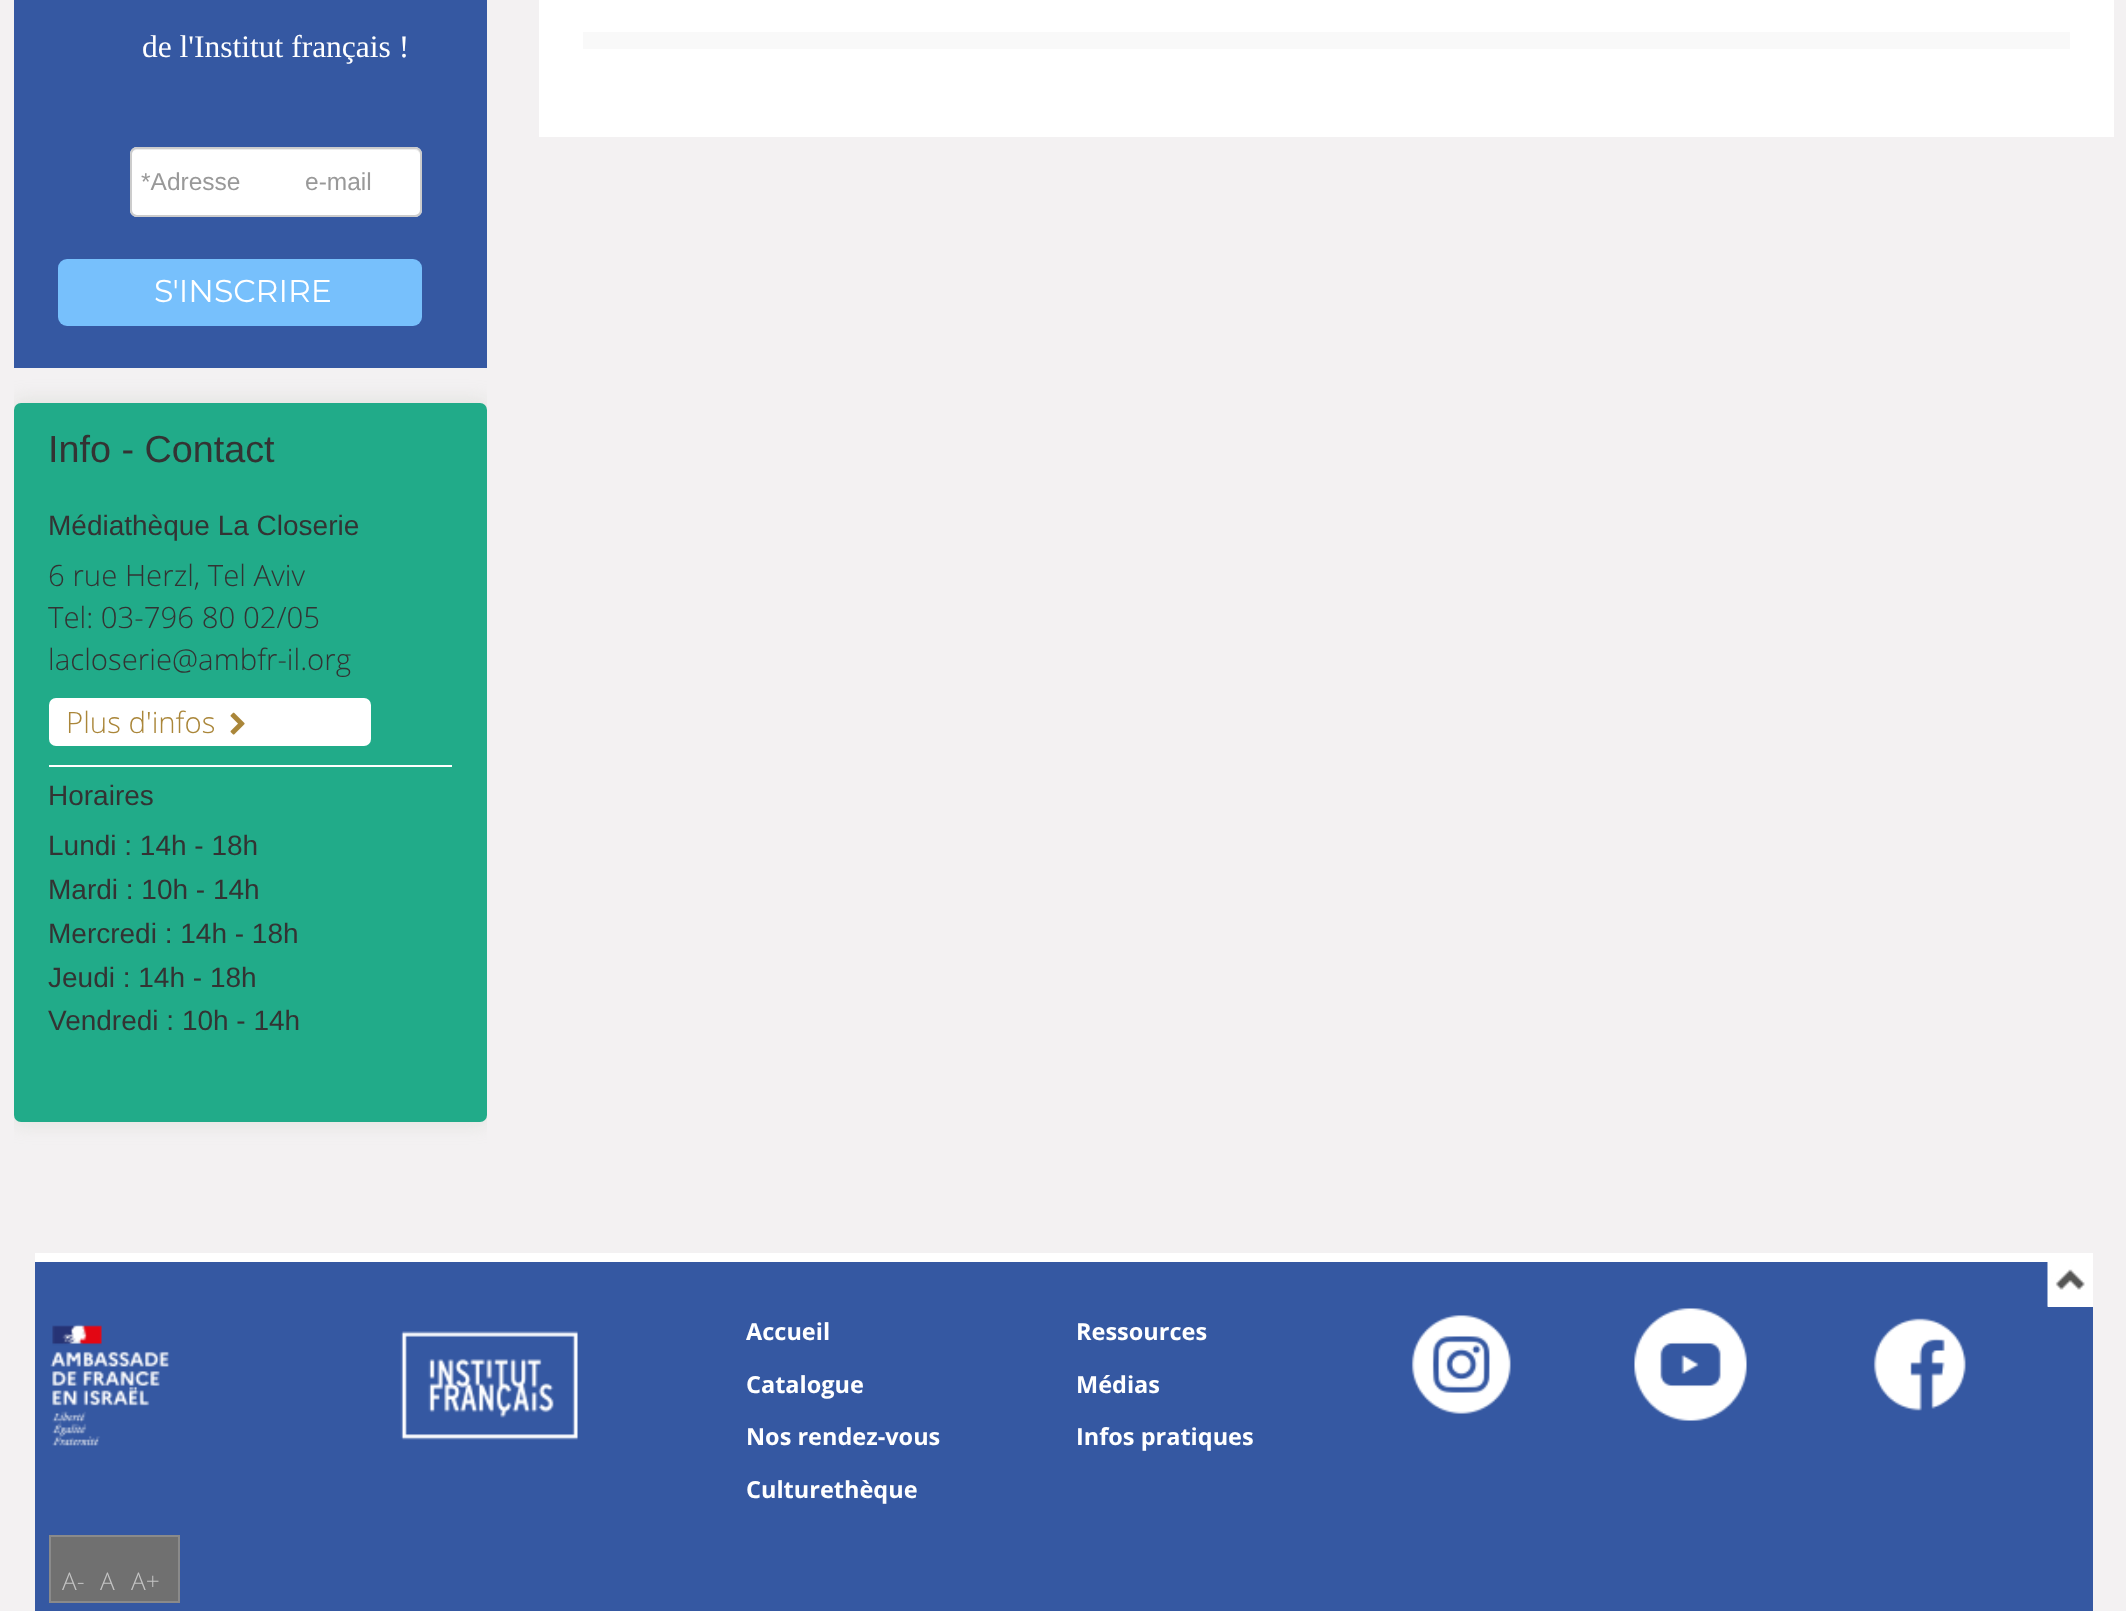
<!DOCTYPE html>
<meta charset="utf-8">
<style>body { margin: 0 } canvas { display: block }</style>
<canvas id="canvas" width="2126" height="1611"></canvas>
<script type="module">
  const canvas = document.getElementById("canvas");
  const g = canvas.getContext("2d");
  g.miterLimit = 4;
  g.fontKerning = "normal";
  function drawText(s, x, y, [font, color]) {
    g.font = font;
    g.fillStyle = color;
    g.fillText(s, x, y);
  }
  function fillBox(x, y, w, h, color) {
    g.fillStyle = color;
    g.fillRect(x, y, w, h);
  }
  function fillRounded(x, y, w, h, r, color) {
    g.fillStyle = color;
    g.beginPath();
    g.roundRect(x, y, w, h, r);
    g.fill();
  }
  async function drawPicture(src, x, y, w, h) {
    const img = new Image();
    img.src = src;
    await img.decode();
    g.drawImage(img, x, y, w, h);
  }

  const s1 = ["31.5px Liberation Serif", "#FFFFFF"];
  const s2 = ["24.5px Liberation Sans", "#999999"];
  const s3 = ["100 31.5px Montserrat", "#FFFFFF"];
  const s4 = ["37.75px Liberation Sans", "#333333"];
  const s5 = ["28px Liberation Sans", "#333333"];
  const s6 = ["300 29.4px Open Sans", "#333333"];
  const s7 = ["300 29.4px Open Sans", "#AA8639"];
  const s8 = ["bold 23.5px Open Sans", "#FFFFFF"];
  const s9 = ["300 24.5px Open Sans", "#C4C4C4"];

  fillBox(0, 0, 2126, 1611, "#F3F1F2");
  fillBox(14, 0, 473, 368, "#3558A2");
  drawText("de l'Institut français !", 142, 57, s1);
  fillRounded(130, 147, 292, 70, 7, "#FFFFFF");
  g.fillStyle = "#ECECEC";
  g.beginPath();
  g.moveTo(136, 150);
  g.lineTo(415, 150);
  g.bezierCurveTo(418, 150, 420, 153, 420, 156);
  g.bezierCurveTo(420, 153, 419, 149, 415, 149);
  g.lineTo(135, 149);
  g.bezierCurveTo(131, 150, 131, 153, 131, 156);
  g.bezierCurveTo(131, 153, 134, 150, 136, 150);
  g.closePath();
  g.fill();
  g.beginPath();
  g.roundRect(131, 148, 290, 68, 6);
  g.strokeStyle = "#CCCCCC";
  g.lineWidth = 2;
  g.stroke();
  drawText("*Adresse", 141, 190, s2);
  drawText("e-mail", 305, 190, s2);
  fillRounded(58, 259, 364, 67, 9, "#77C0FC");
  drawText("S'INSCRIRE", 154, 302, s3);
  g.save();
  g.beginPath();
  g.rect(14, 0, 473, 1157);
  g.clip();
  g.fillStyle = "rgba(190, 195, 182, 0.29)";
  g.filter = "blur(9px)";
  g.beginPath();
  g.roundRect(11, 399, 479, 726, 11);
  g.fill();
  g.filter = "none";
  g.restore();
  fillRounded(14, 403, 473, 719, 7, "#21AB89");
  drawText("Info - Contact", 48, 462, s4);
  drawText("Médiathèque La Closerie", 48, 535, s5);
  drawText("6 rue Herzl, Tel Aviv", 48, 586, s6);
  drawText("Tel: 03-796 80 02/05", 48, 628, s6);
  drawText("lacloserie@ambfr-il.org", 48, 670, s6);
  fillRounded(49, 698, 322, 48, 7, "#FFFFFF");
  drawText("Plus d'infos", 66, 733, s7);
  await drawPicture("pic1.png", 230, 712, 15, 23);
  fillBox(49, 765, 403, 2, "#FFFFFF");
  drawText("Horaires", 48, 805, s5);
  drawText("Lundi : 14h - 18h", 48, 855, s5);
  drawText("Mardi : 10h - 14h", 48, 899, s5);
  drawText("Mercredi : 14h - 18h", 48, 943, s5);
  drawText("Jeudi : 14h - 18h", 48, 987, s5);
  drawText("Vendredi : 10h - 14h", 48, 1030, s5);
  fillBox(539, 0, 1575, 137, "#FFFFFF");
  fillBox(583, 32, 1487, 17, "#F9F9F9");
  fillBox(35, 1262, 2058, 349, "#3558A2");
  fillBox(35, 1253, 2058, 9, "#FFFFFF");
  fillBox(2048, 1262, 45, 45, "#FFFFFF");
  await drawPicture("pic2.png", 2047, 1262, 38, 45);
  await drawPicture("pic3.png", 50, 1324, 120, 122);
  await drawPicture("pic4.png", 400, 1331, 178, 109);
  drawText("Accueil", 746, 1340, s8);
  drawText("Catalogue", 746, 1393, s8);
  drawText("Nos rendez-vous", 746, 1445, s8);
  drawText("Culturethèque", 746, 1498, s8);
  drawText("Ressources", 1076, 1340, s8);
  drawText("Médias", 1076, 1393, s8);
  drawText("Infos pratiques", 1076, 1445, s8);
  await drawPicture("pic5.png", 1411, 1315, 100, 99);
  await drawPicture("pic6.png", 1634, 1308, 113, 113);
  await drawPicture("pic7.png", 1873, 1318, 93, 93);
  g.fillStyle = "#707070";
  g.beginPath();
  g.rect(50, 1536, 129, 66);
  g.fill();
  g.strokeStyle = "#8A8A8A";
  g.stroke();
  drawText("A-", 62, 1590, s9);
  drawText("A", 100, 1590, s9);
  drawText("A+", 131, 1590, s9);
</script>
